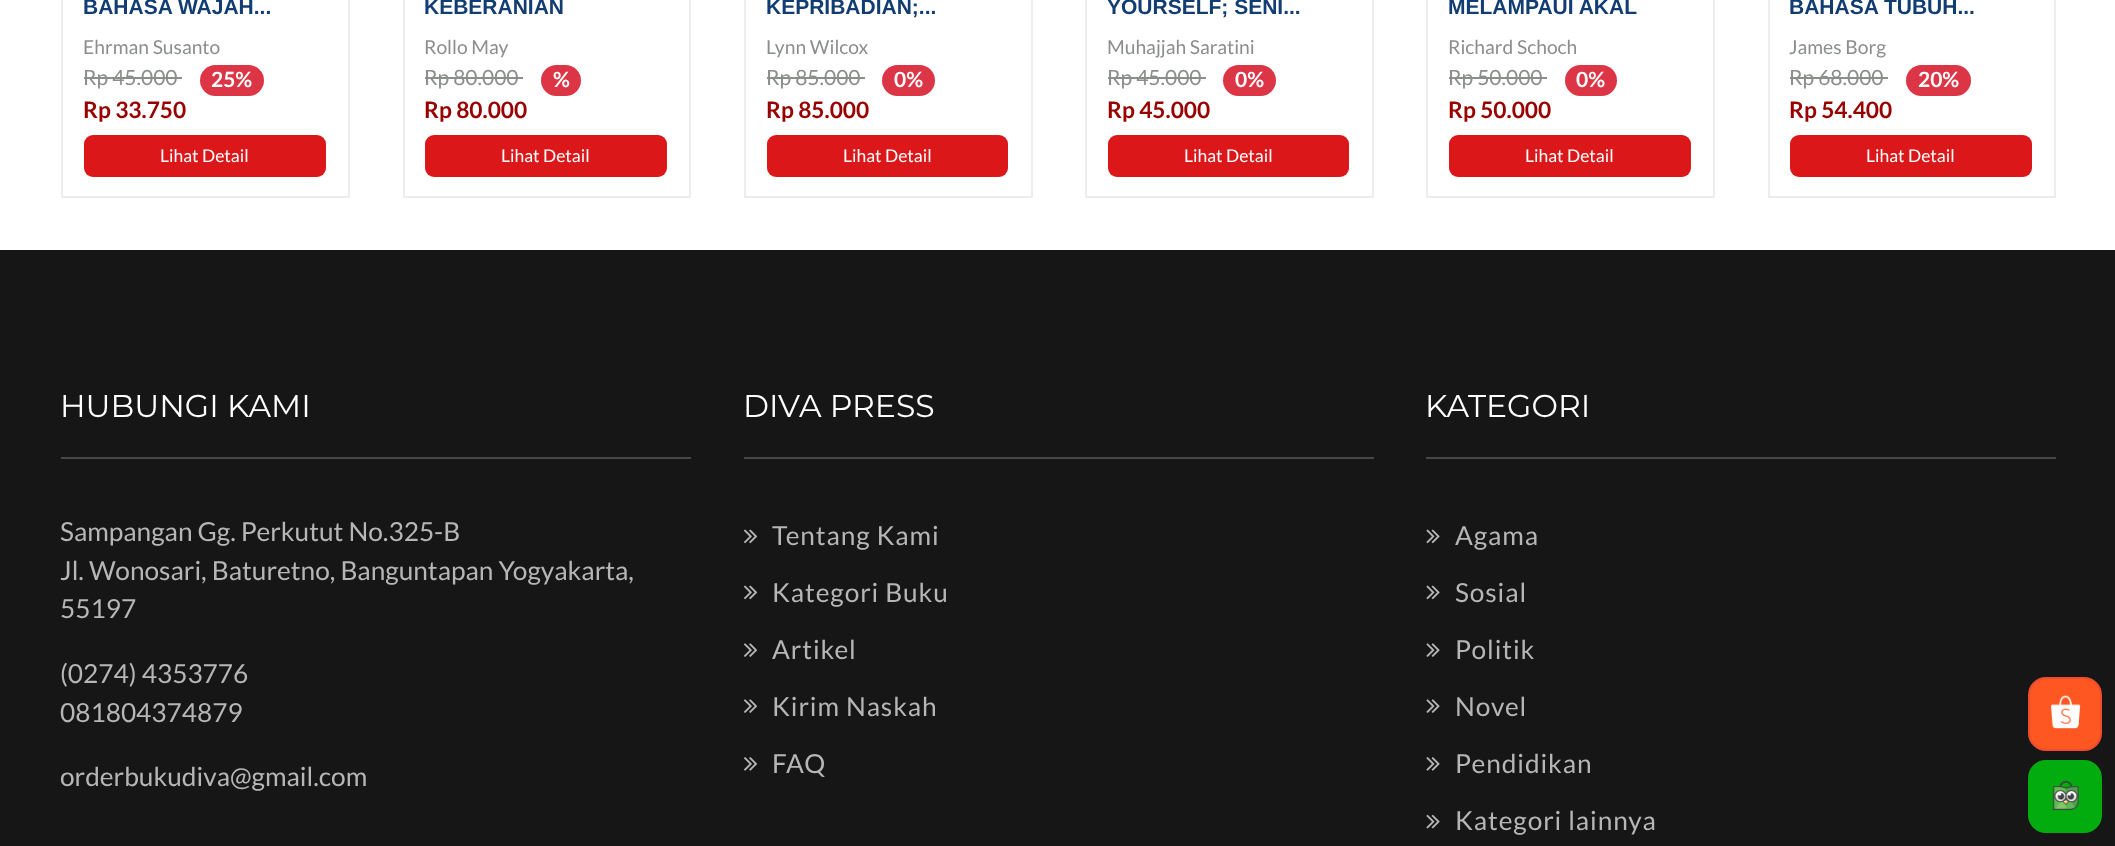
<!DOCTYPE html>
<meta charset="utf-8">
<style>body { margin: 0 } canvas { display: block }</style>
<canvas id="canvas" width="2115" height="846"></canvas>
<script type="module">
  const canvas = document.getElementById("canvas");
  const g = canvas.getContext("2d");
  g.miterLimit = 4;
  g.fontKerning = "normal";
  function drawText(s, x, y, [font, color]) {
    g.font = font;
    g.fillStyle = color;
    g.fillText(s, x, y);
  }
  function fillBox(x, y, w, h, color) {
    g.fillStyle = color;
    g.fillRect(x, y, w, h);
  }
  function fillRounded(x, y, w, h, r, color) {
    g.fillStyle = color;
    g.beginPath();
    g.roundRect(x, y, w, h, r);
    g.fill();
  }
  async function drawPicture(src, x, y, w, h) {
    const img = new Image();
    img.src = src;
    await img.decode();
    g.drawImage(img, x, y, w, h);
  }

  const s1 = ["bold 21px Liberation Sans", "#123D73"];
  const s2 = ["19.25px Lato", "#8B8F8B"];
  const s3 = ["21px Lato", "#8B8F8B"];
  const s4 = ["bold 21px Lato", "#FFFFFF"];
  const s5 = ["bold 22.75px Lato", "#980000"];
  const s6 = ["17.5px Lato", "#FFFFFF"];
  const s7 = ["31.5px Montserrat", "#FFFFFF"];
  const s8 = ["26.25px Lato", "#B6B6B6"];

  fillBox(0, 0, 2115, 846, "#FFFFFF");
  g.strokeStyle = "#EDEDED";
  g.lineWidth = 2;
  g.strokeRect(62, -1, 287, 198);
  drawText("BAHASA WAJAH...", 83, 14, s1);
  drawText("Ehrman Susanto", 83, 54, s2);
  drawText("Rp 45.000", 83, 85, s3);
  fillBox(84, 77, 98, 2, "#8B8F8B");
  fillRounded(200, 65, 64, 31, 15.5, "#DC3545");
  drawText("25%", 211, 87, s4);
  drawText("Rp 33.750", 83, 118, s5);
  fillRounded(84, 135, 242, 42, 9, "#DC1719");
  drawText("Lihat Detail", 160, 162, s6);
  g.strokeRect(404, -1, 286, 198);
  drawText("KEBERANIAN", 424, 14, s1);
  drawText("Rollo May", 424, 54, s2);
  drawText("Rp 80.000", 424, 85, s3);
  fillBox(425, 77, 98, 2, "#8B8F8B");
  fillRounded(541, 65, 40, 31, 15.5, "#DC3545");
  drawText("%", 553, 87, s4);
  drawText("Rp 80.000", 424, 118, s5);
  fillRounded(425, 135, 242, 42, 9, "#DC1719");
  drawText("Lihat Detail", 501, 162, s6);
  g.strokeRect(745, -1, 287, 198);
  drawText("KEPRIBADIAN;...", 766, 14, s1);
  drawText("Lynn Wilcox", 766, 54, s2);
  drawText("Rp 85.000", 766, 85, s3);
  fillBox(767, 77, 98, 2, "#8B8F8B");
  fillRounded(882, 65, 53, 31, 15.5, "#DC3545");
  drawText("0%", 894, 87, s4);
  drawText("Rp 85.000", 766, 118, s5);
  fillRounded(767, 135, 241, 42, 9, "#DC1719");
  drawText("Lihat Detail", 843, 162, s6);
  g.strokeRect(1086, -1, 287, 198);
  drawText("YOURSELF; SENI...", 1107, 14, s1);
  drawText("Muhajjah Saratini", 1107, 54, s2);
  drawText("Rp 45.000", 1107, 85, s3);
  fillBox(1108, 77, 98, 2, "#8B8F8B");
  fillRounded(1223, 65, 53, 31, 15.5, "#DC3545");
  drawText("0%", 1235, 87, s4);
  drawText("Rp 45.000", 1107, 118, s5);
  fillRounded(1108, 135, 241, 42, 9, "#DC1719");
  drawText("Lihat Detail", 1184, 162, s6);
  g.strokeRect(1427, -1, 287, 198);
  drawText("MELAMPAUI AKAL", 1448, 14, s1);
  drawText("Richard Schoch", 1448, 54, s2);
  drawText("Rp 50.000", 1448, 85, s3);
  fillBox(1449, 77, 98, 2, "#8B8F8B");
  fillRounded(1565, 65, 52, 31, 15.5, "#DC3545");
  drawText("0%", 1576, 87, s4);
  drawText("Rp 50.000", 1448, 118, s5);
  fillRounded(1449, 135, 242, 42, 9, "#DC1719");
  drawText("Lihat Detail", 1525, 162, s6);
  g.strokeRect(1769, -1, 286, 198);
  drawText("BAHASA TUBUH...", 1789, 14, s1);
  drawText("James Borg", 1789, 54, s2);
  drawText("Rp 68.000", 1789, 85, s3);
  fillBox(1790, 77, 98, 2, "#8B8F8B");
  fillRounded(1906, 65, 65, 31, 15.5, "#DC3545");
  drawText("20%", 1918, 87, s4);
  drawText("Rp 54.400", 1789, 118, s5);
  fillRounded(1790, 135, 242, 42, 9, "#DC1719");
  drawText("Lihat Detail", 1866, 162, s6);
  fillBox(0, 250, 2115, 596, "#171616");
  fillBox(61, 457, 630, 2, "#474747");
  drawText("HUBUNGI KAMI", 60, 417, s7);
  drawText("Sampangan Gg. Perkutut No.325-B", 60, 541, s8);
  drawText("Jl. Wonosari, Baturetno, Banguntapan Yogyakarta,", 60, 580, s8);
  drawText("55197", 60, 618, s8);
  drawText("(0274) 4353776", 60, 683, s8);
  drawText("081804374879", 60, 722, s8);
  drawText("orderbukudiva@gmail.com", 60, 786, s8);
  fillBox(744, 457, 630, 2, "#474747");
  drawText("DIVA PRESS", 743, 417, s7);
  await drawPicture("pic1.png", 744, 529, 14, 15);
  g.letterSpacing = "0.9px";
  drawText("Tentang Kami", 772, 545, s8);
  await drawPicture("pic1.png", 744, 585, 14, 15);
  drawText("Kategori Buku", 772, 602, s8);
  await drawPicture("pic2.png", 744, 643, 14, 14);
  drawText("Artikel", 772, 659, s8);
  await drawPicture("pic2.png", 744, 699, 14, 14);
  drawText("Kirim Naskah", 772, 716, s8);
  await drawPicture("pic3.png", 744, 757, 14, 14);
  drawText("FAQ", 772, 773, s8);
  fillBox(1426, 457, 630, 2, "#474747");
  g.letterSpacing = "0px";
  drawText("KATEGORI", 1425, 417, s7);
  await drawPicture("pic4.png", 1426, 529, 14, 15);
  g.letterSpacing = "0.9px";
  drawText("Agama", 1455, 545, s8);
  await drawPicture("pic4.png", 1426, 585, 14, 15);
  drawText("Sosial", 1455, 602, s8);
  await drawPicture("pic5.png", 1426, 643, 14, 14);
  drawText("Politik", 1455, 659, s8);
  await drawPicture("pic5.png", 1426, 699, 14, 14);
  drawText("Novel", 1455, 716, s8);
  await drawPicture("pic6.png", 1426, 757, 14, 14);
  drawText("Pendidikan", 1455, 773, s8);
  await drawPicture("pic7.png", 1426, 814, 14, 15);
  drawText("Kategori lainnya", 1455, 830, s8);
  g.fillStyle = "#FF5722";
  g.beginPath();
  g.roundRect(2029, 678, 72, 72, 17);
  g.fill();
  g.strokeStyle = "#EE4D2D";
  g.stroke();
  await drawPicture("pic8.png", 2051, 695, 30, 34);
  g.fillStyle = "#03AC0E";
  g.beginPath();
  g.roundRect(2029, 761, 72, 71, 17);
  g.fill();
  g.strokeStyle = "#03AC0E";
  g.stroke();
  await drawPicture("pic9.png", 2052, 780, 27, 31);
</script>
